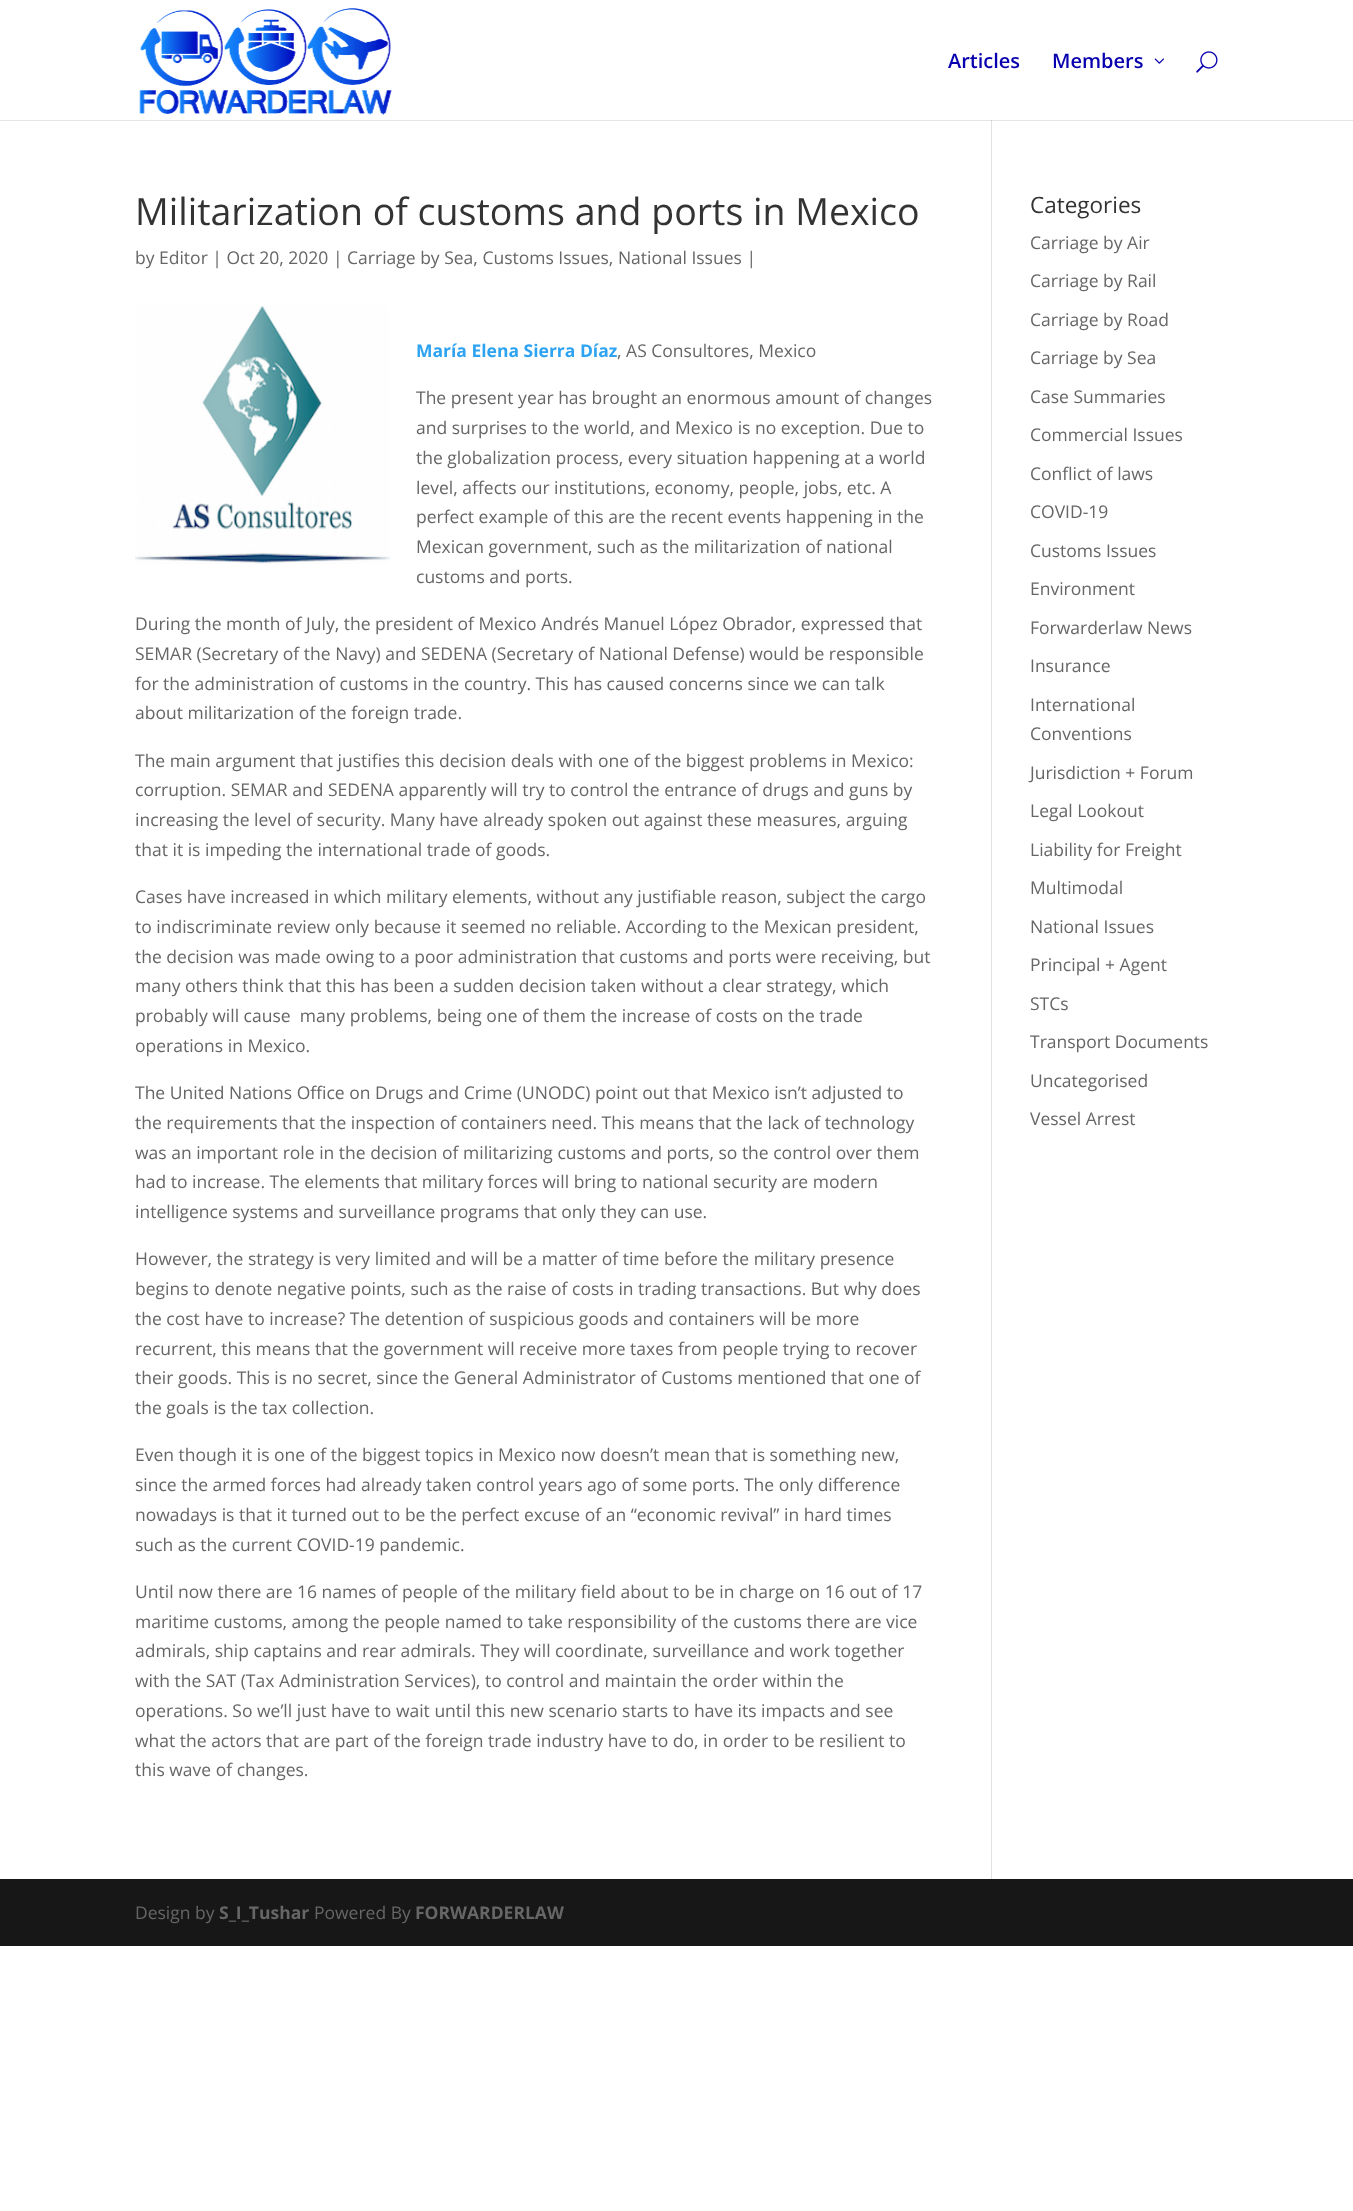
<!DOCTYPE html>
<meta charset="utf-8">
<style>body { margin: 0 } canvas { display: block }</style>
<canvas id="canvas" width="1353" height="2211"></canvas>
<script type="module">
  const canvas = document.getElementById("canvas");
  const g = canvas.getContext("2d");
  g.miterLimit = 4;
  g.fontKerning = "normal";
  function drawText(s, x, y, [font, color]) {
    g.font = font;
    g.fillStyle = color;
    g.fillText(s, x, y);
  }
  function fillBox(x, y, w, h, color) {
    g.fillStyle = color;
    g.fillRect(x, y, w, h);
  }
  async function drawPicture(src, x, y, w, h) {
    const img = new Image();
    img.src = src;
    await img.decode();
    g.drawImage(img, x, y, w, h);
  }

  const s1 = ["600 20px Open Sans", "#0800AF"];
  const s2 = ["37.5px Open Sans", "#333333"];
  const s3 = ["17.5px Open Sans", "#666666"];
  const s4 = ["bold 17.5px Open Sans", "#2EA3F2"];
  const s5 = ["22.5px Open Sans", "#333333"];
  const s6 = ["bold 17.5px Open Sans", "#666666"];

  fillBox(0, 0, 1353, 2211, "#FFFFFF");
  fillBox(991, 120, 1, 1759, "#E2E2E2");
  g.fillStyle = "rgba(0, 0, 0, 0.1)";
  g.beginPath();
  g.moveTo(0, 120);
  g.lineTo(0, 121);
  g.lineTo(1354, 121);
  g.lineTo(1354, 1);
  g.lineTo(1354, 120);
  g.closePath();
  g.fill();
  await drawPicture("pic1.png", 139, 8, 253, 107);
  drawText("Articles", 948, 68, s1);
  drawText("Members", 1052, 68, s1);
  await drawPicture("pic2.png", 1154, 58, 10, 6);
  await drawPicture("pic3.png", 1196, 51, 22, 22);
  drawText("Militarization of customs and ports in Mexico", 135, 225, s2);
  drawText("by Editor | Oct 20, 2020 | Carriage by Sea, Customs Issues, National Issues |", 135, 264, s3);
  await drawPicture("pic4.png", 135, 305, 255, 259);
  drawText("María Elena Sierra Díaz", 416, 357, s4);
  drawText(", AS Consultores, Mexico", 617, 357, s3);
  drawText("The present year has brought an enormous amount of changes", 416, 404, s3);
  drawText("and surprises to the world, and Mexico is no exception. Due to", 416, 434, s3);
  drawText("the globalization process, every situation happening at a world", 416, 464, s3);
  drawText("level, affects our institutions, economy, people, jobs, etc. A", 416, 494, s3);
  drawText("perfect example of this are the recent events happening in the", 416, 523, s3);
  drawText("Mexican government, such as the militarization of national", 416, 553, s3);
  drawText("customs and ports.", 416, 583, s3);
  drawText("During the month of July, the president of Mexico Andrés Manuel López Obrador, expressed that", 135, 630, s3);
  drawText("SEMAR (Secretary of the Navy) and SEDENA (Secretary of National Defense) would be responsible", 135, 660, s3);
  drawText("for the administration of customs in the country. This has caused concerns since we can talk", 135, 690, s3);
  drawText("about militarization of the foreign trade.", 135, 719, s3);
  drawText("The main argument that justifies this decision deals with one of the biggest problems in Mexico:", 135, 767, s3);
  drawText("corruption. SEMAR and SEDENA apparently will try to control the entrance of drugs and guns by", 135, 796, s3);
  drawText("increasing the level of security. Many have already spoken out against these measures, arguing", 135, 826, s3);
  drawText("that it is impeding the international trade of goods.", 135, 856, s3);
  drawText("Cases have increased in which military elements, without any justifiable reason, subject the cargo", 135, 903, s3);
  drawText("to indiscriminate review only because it seemed no reliable. According to the Mexican president,", 135, 933, s3);
  drawText("the decision was made owing to a poor administration that customs and ports were receiving, but", 135, 963, s3);
  drawText("many others think that this has been a sudden decision taken without a clear strategy, which", 135, 992, s3);
  drawText("probably will cause  many problems, being one of them the increase of costs on the trade", 135, 1022, s3);
  drawText("operations in Mexico.", 135, 1052, s3);
  drawText("The United Nations Office on Drugs and Crime (UNODC) point out that Mexico isn’t adjusted to", 135, 1099, s3);
  drawText("the requirements that the inspection of containers need. This means that the lack of technology", 135, 1129, s3);
  drawText("was an important role in the decision of militarizing customs and ports, so the control over them", 135, 1159, s3);
  drawText("had to increase. The elements that military forces will bring to national security are modern", 135, 1188, s3);
  drawText("intelligence systems and surveillance programs that only they can use.", 135, 1218, s3);
  drawText("However, the strategy is very limited and will be a matter of time before the military presence", 135, 1265, s3);
  drawText("begins to denote negative points, such as the raise of costs in trading transactions. But why does", 135, 1295, s3);
  drawText("the cost have to increase? The detention of suspicious goods and containers will be more", 135, 1325, s3);
  drawText("recurrent, this means that the government will receive more taxes from people trying to recover", 135, 1355, s3);
  drawText("their goods. This is no secret, since the General Administrator of Customs mentioned that one of", 135, 1384, s3);
  drawText("the goals is the tax collection.", 135, 1414, s3);
  drawText("Even though it is one of the biggest topics in Mexico now doesn’t mean that is something new,", 135, 1461, s3);
  drawText("since the armed forces had already taken control years ago of some ports. The only difference", 135, 1491, s3);
  drawText("nowadays is that it turned out to be the perfect excuse of an “economic revival” in hard times", 135, 1521, s3);
  drawText("such as the current COVID-19 pandemic.", 135, 1551, s3);
  drawText("Until now there are 16 names of people of the military field about to be in charge on 16 out of 17", 135, 1598, s3);
  drawText("maritime customs, among the people named to take responsibility of the customs there are vice", 135, 1628, s3);
  drawText("admirals, ship captains and rear admirals. They will coordinate, surveillance and work together", 135, 1657, s3);
  drawText("with the SAT (Tax Administration Services), to control and maintain the order within the", 135, 1687, s3);
  drawText("operations. So we’ll just have to wait until this new scenario starts to have its impacts and see", 135, 1717, s3);
  drawText("what the actors that are part of the foreign trade industry have to do, in order to be resilient to", 135, 1747, s3);
  drawText("this wave of changes.", 135, 1776, s3);
  drawText("Categories", 1030, 213, s5);
  drawText("Carriage by Air", 1030, 249, s3);
  drawText("Carriage by Rail", 1030, 287, s3);
  drawText("Carriage by Road", 1030, 326, s3);
  drawText("Carriage by Sea", 1030, 364, s3);
  drawText("Case Summaries", 1030, 403, s3);
  drawText("Commercial Issues", 1030, 441, s3);
  drawText("Conflict of laws", 1030, 480, s3);
  drawText("COVID-19", 1030, 518, s3);
  drawText("Customs Issues", 1030, 557, s3);
  drawText("Environment", 1030, 595, s3);
  drawText("Forwarderlaw News", 1030, 634, s3);
  drawText("Insurance", 1030, 672, s3);
  drawText("International", 1030, 711, s3);
  drawText("Conventions", 1030, 740, s3);
  drawText("Jurisdiction + Forum", 1030, 779, s3);
  drawText("Legal Lookout", 1030, 817, s3);
  drawText("Liability for Freight", 1030, 856, s3);
  drawText("Multimodal", 1030, 894, s3);
  drawText("National Issues", 1030, 933, s3);
  drawText("Principal + Agent", 1030, 971, s3);
  drawText("STCs", 1030, 1010, s3);
  drawText("Transport Documents", 1030, 1048, s3);
  drawText("Uncategorised", 1030, 1087, s3);
  drawText("Vessel Arrest", 1030, 1125, s3);
  fillBox(0, 1879, 1353, 67, "#171717");
  drawText("Design by", 135, 1919, s3);
  drawText("S_I_Tushar", 219, 1919, s6);
  drawText("Powered By", 314, 1919, s3);
  drawText("FORWARDERLAW", 415, 1919, s6);
</script>
